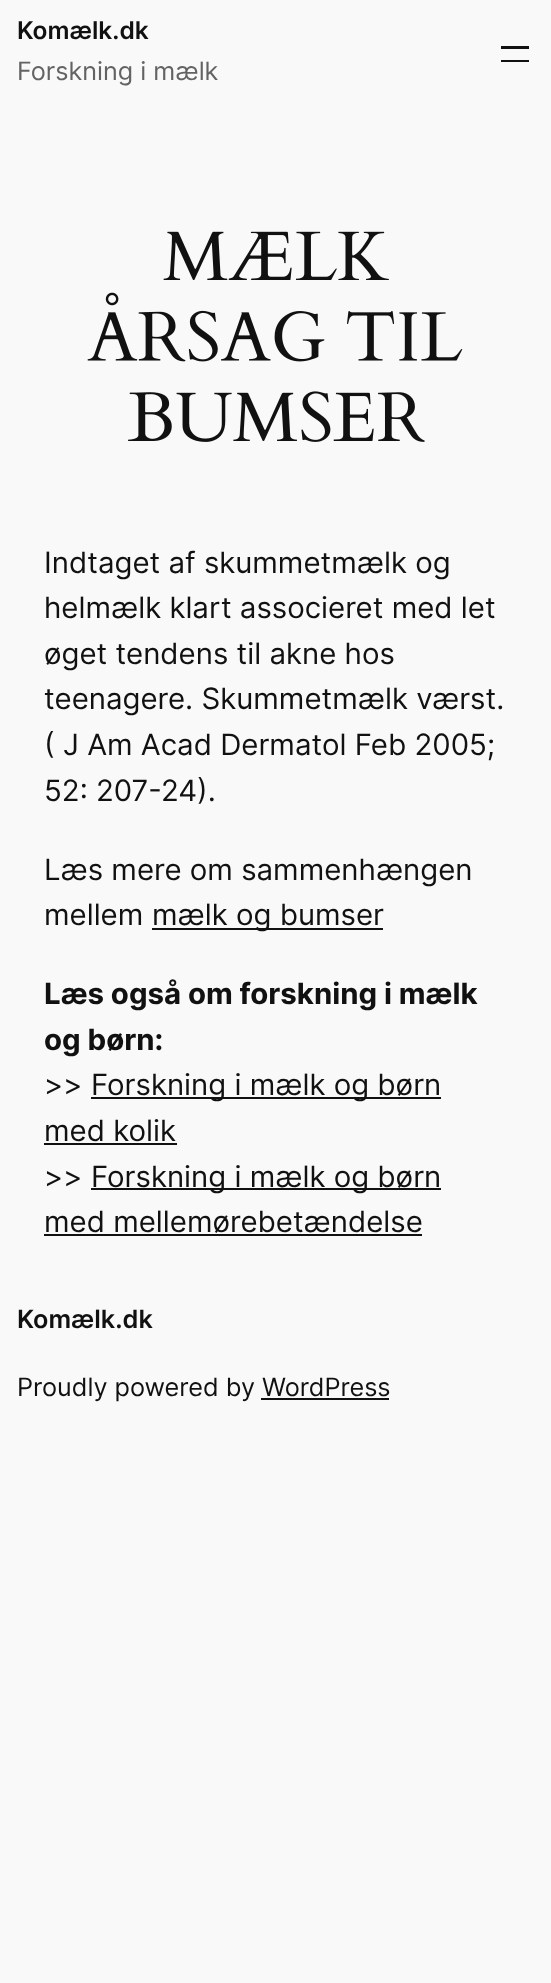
<!DOCTYPE html>
<meta charset="utf-8">
<style>body { margin: 0 } canvas { display: block }</style>
<canvas id="canvas" width="551" height="1983"></canvas>
<script type="module">
  const canvas = document.getElementById("canvas");
  const g = canvas.getContext("2d");
  g.miterLimit = 4;
  g.fontKerning = "normal";
  function drawText(s, x, y, [font, color]) {
    g.font = font;
    g.fillStyle = color;
    g.fillText(s, x, y);
  }
  function fillBox(x, y, w, h, color) {
    g.fillStyle = color;
    g.fillRect(x, y, w, h);
  }
  async function drawPicture(src, x, y, w, h) {
    const img = new Image();
    img.src = src;
    await img.decode();
    g.drawImage(img, x, y, w, h);
  }

  const s1 = ["600 24.5px Inter", "#111111"];
  const s2 = ["25.25px Inter", "#636363"];
  const s3 = ["29.4px Inter", "#111111"];
  const s4 = ["bold 29.4px Inter", "#111111"];
  const s5 = ["600 25.25px Inter", "#111111"];
  const s6 = ["25.25px Inter", "#111111"];

  fillBox(0, 0, 551, 1983, "#F9F9F9");
  drawText("Komælk.dk", 17, 39, s1);
  drawText("Forskning i mælk", 17, 80, s2);
  fillBox(501, 46, 28, 3, "#111111");
  fillBox(501, 60, 28, 2, "#111111");
  await drawPicture("pic1.png", 163, 231, 226, 49);
  await drawPicture("pic2.png", 87, 292, 376, 70);
  await drawPicture("pic3.png", 128, 391, 297, 51);
  drawText("Indtaget af skummetmælk og", 44, 573, s3);
  drawText("helmælk klart associeret med let", 44, 618, s3);
  drawText("øget tendens til akne hos", 44, 664, s3);
  drawText("teenagere. Skummetmælk værst.", 44, 709, s3);
  drawText("( J Am Acad Dermatol Feb 2005;", 44, 755, s3);
  drawText("52: 207-24).", 44, 801, s3);
  drawText("Læs mere om sammenhængen", 44, 880, s3);
  drawText("mellem", 44, 925, s3);
  fillBox(152, 928, 231, 2, "#111111");
  drawText("mælk og bumser", 152, 925, s3);
  drawText("Læs også om forskning i mælk", 44, 1004, s4);
  drawText("og børn:", 44, 1050, s4);
  drawText(">>", 44, 1095, s3);
  fillBox(91, 1097, 350, 2, "#111111");
  drawText("Forskning i mælk og børn", 91, 1095, s3);
  drawText("med kolik", 44, 1141, s3);
  fillBox(44, 1143, 133, 2, "#111111");
  drawText(">>", 44, 1187, s3);
  fillBox(91, 1188, 350, 2, "#111111");
  drawText("Forskning i mælk og børn", 91, 1187, s3);
  drawText("med mellemørebetændelse", 44, 1232, s3);
  fillBox(44, 1234, 378, 2, "#111111");
  drawText("Komælk.dk", 17, 1328, s5);
  drawText("Proudly powered by WordPress", 17, 1396, s6);
  fillBox(261, 1398, 128, 2, "#111111");
</script>
